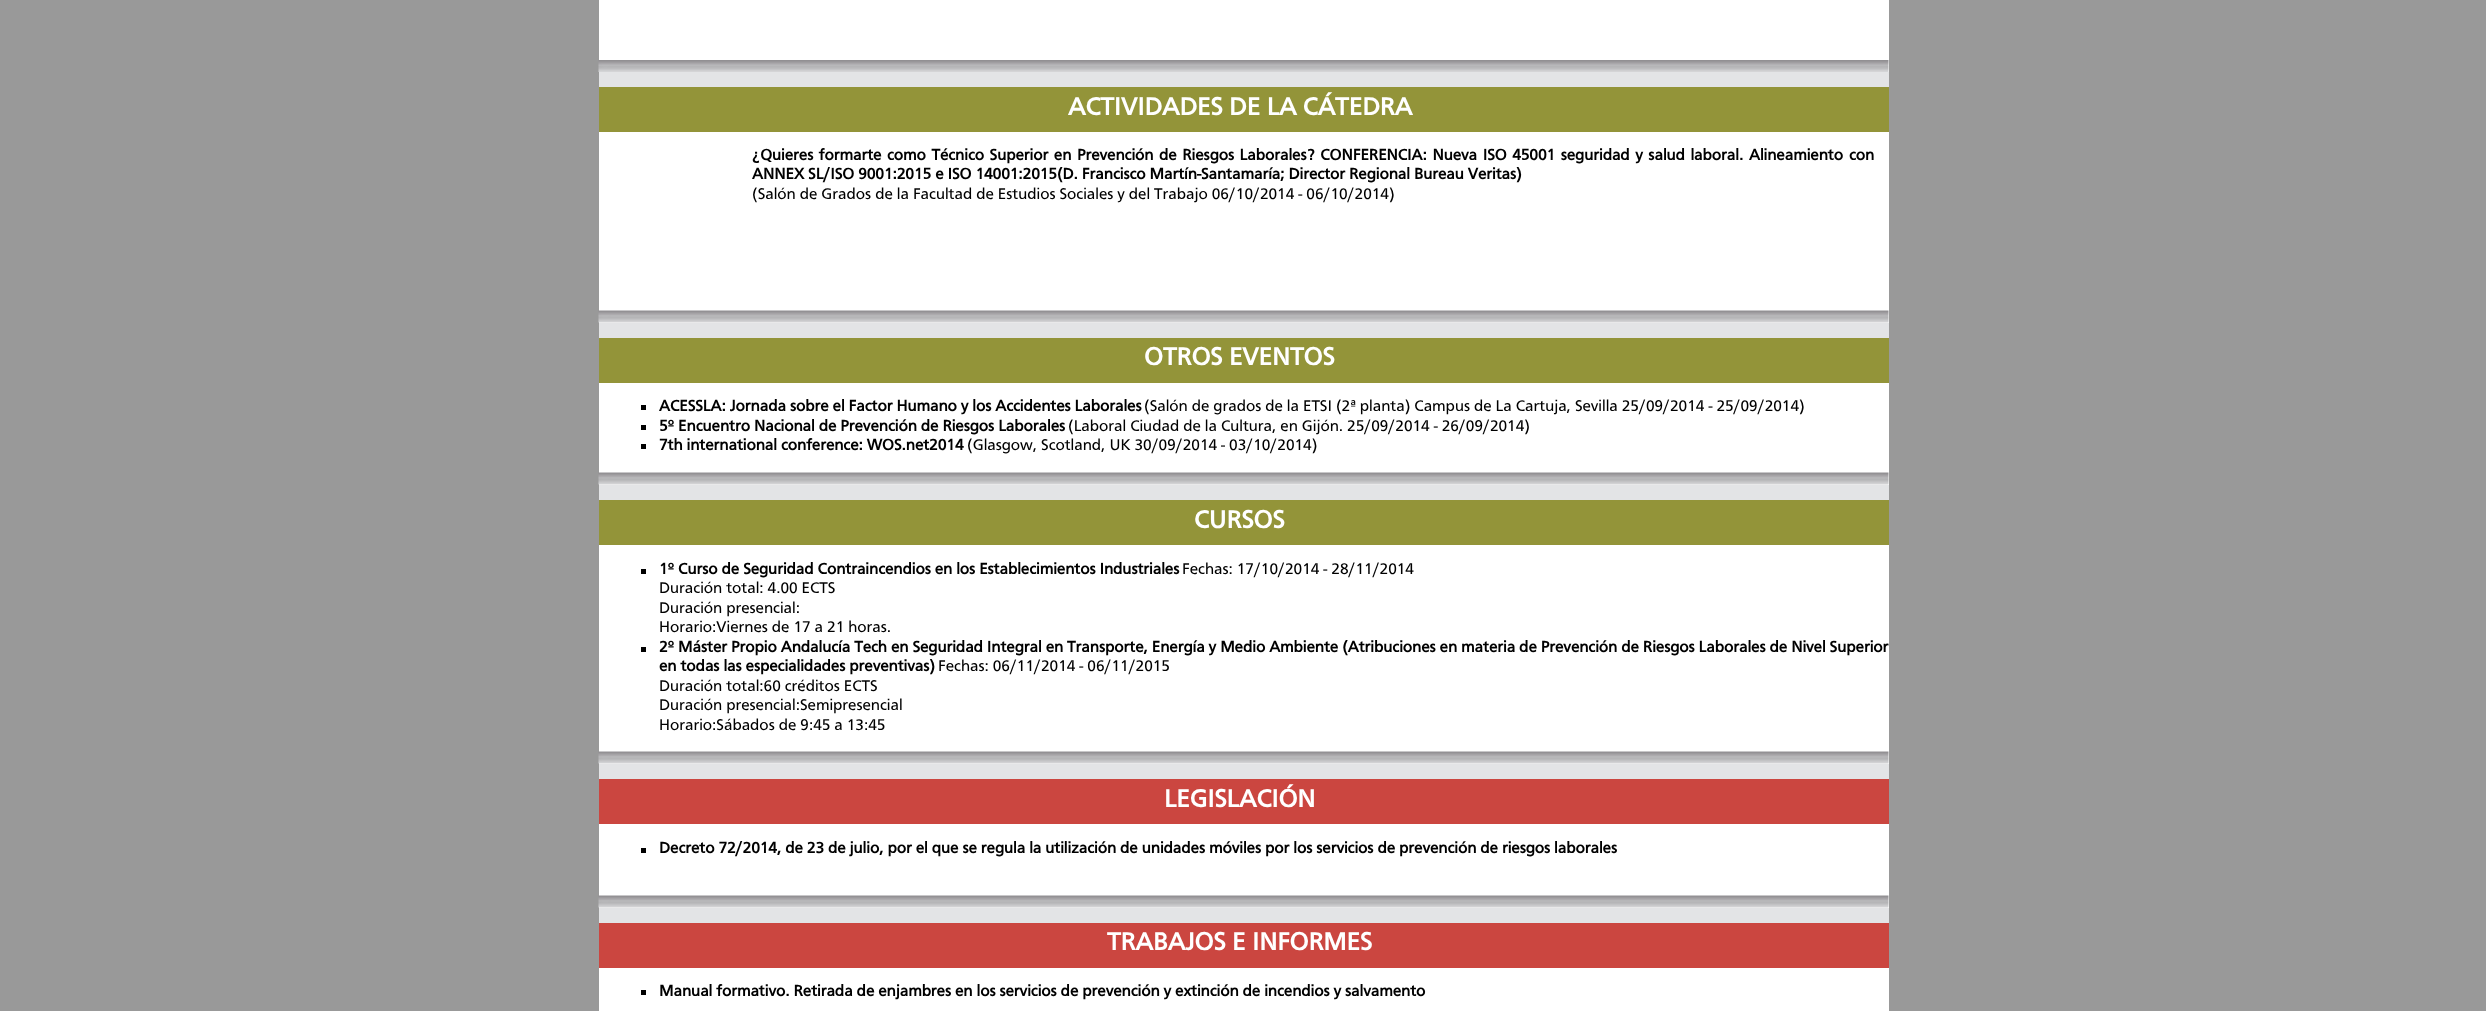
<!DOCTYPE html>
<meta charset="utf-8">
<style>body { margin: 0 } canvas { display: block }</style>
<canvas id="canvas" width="2486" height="1011"></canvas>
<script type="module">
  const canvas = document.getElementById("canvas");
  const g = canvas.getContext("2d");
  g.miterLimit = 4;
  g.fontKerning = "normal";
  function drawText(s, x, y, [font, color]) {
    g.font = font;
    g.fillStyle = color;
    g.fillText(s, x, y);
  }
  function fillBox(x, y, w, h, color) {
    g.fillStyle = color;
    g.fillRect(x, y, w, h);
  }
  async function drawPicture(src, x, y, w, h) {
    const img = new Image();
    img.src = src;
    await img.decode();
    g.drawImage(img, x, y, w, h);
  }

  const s1 = ["bold 25.6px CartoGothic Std", "#FFFFFF"];
  const s2 = ["bold 16px CartoGothic Std", "#000000"];
  const s3 = ["16px CartoGothic Std", "#000000"];

  fillBox(0, 0, 2486, 1011, "#999999");
  fillBox(599, 0, 1290, 1011, "#FFFFFF");
  await drawPicture("pic1.png", 598, 60, 1291, 12);
  fillBox(599, 87, 1290, 45, "#939439");
  fillBox(599, 72, 1290, 15, "#E3E4E6");
  drawText("ACTIVIDADES DE LA CÁTEDRA", 1068, 115, s1);
  g.wordSpacing = "1.6px";
  drawText("¿Quieres formarte como Técnico Superior en Prevención de Riesgos Laborales? CONFERENCIA: Nueva ISO 45001 seguridad y salud laboral.", 752, 160, s2);
  g.wordSpacing = "2px";
  drawText("Alineamiento con", 1749, 160, s2);
  g.wordSpacing = "0px";
  drawText("ANNEX SL/ISO 9001:2015 e ISO 14001:2015(D. Francisco Martín-Santamaría; Director Regional Bureau Veritas)", 752, 179, s2);
  drawText("(Salón de Grados de la Facultad de Estudios Sociales y del Trabajo 06/10/2014 - 06/10/2014)", 752, 199, s3);
  await drawPicture("pic2.png", 598, 310, 1291, 13);
  fillBox(599, 338, 1290, 45, "#939439");
  fillBox(599, 323, 1290, 15, "#E3E4E6");
  drawText("OTROS EVENTOS", 1144, 365, s1);
  fillBox(641, 405, 5, 5, "#000000");
  drawText("ACESSLA: Jornada sobre el Factor Humano y los Accidentes Laborales", 659, 411, s2);
  drawText("(Salón de grados de la ETSI (2ª planta) Campus de La Cartuja, Sevilla 25/09/2014 - 25/09/2014)", 1144, 411, s3);
  fillBox(641, 425, 5, 5, "#000000");
  drawText("5º Encuentro Nacional de Prevención de Riesgos Laborales", 659, 431, s2);
  drawText("(Laboral Ciudad de la Cultura, en Gijón. 25/09/2014 - 26/09/2014)", 1068, 431, s3);
  fillBox(641, 444, 5, 5, "#000000");
  drawText("7th international conference: WOS.net2014", 659, 450, s2);
  drawText("(Glasgow, Scotland, UK 30/09/2014 - 03/10/2014)", 967, 450, s3);
  await drawPicture("pic2.png", 598, 472, 1291, 13);
  fillBox(599, 500, 1290, 45, "#939439");
  fillBox(599, 485, 1290, 15, "#E3E4E6");
  drawText("CURSOS", 1194, 528, s1);
  fillBox(641, 569, 5, 5, "#000000");
  drawText("1º Curso de Seguridad Contraincendios en los Establecimientos Industriales", 659, 574, s2);
  drawText("Fechas: 17/10/2014 - 28/11/2014", 1182, 574, s3);
  drawText("Duración total: 4.00 ECTS", 659, 593, s3);
  drawText("Duración presencial:", 659, 613, s3);
  drawText("Horario:Viernes de 17 a 21 horas.", 659, 632, s3);
  fillBox(641, 647, 5, 5, "#000000");
  drawText("2º Máster Propio Andalucía Tech en Seguridad Integral en Transporte, Energía y Medio Ambiente (Atribuciones en materia de Prevención de Riesgos Laborales de Nivel Superior", 659, 652, s2);
  drawText("en todas las especialidades preventivas)", 659, 671, s2);
  drawText("Fechas: 06/11/2014 - 06/11/2015", 938, 671, s3);
  drawText("Duración total:60 créditos ECTS", 659, 691, s3);
  drawText("Duración presencial:Semipresencial", 659, 710, s3);
  drawText("Horario:Sábados de 9:45 a 13:45", 659, 730, s3);
  await drawPicture("pic2.png", 598, 751, 1291, 13);
  fillBox(599, 779, 1290, 45, "#CB4640");
  fillBox(599, 764, 1290, 15, "#E3E4E6");
  drawText("LEGISLACIÓN", 1164, 807, s1);
  fillBox(641, 848, 5, 5, "#000000");
  drawText("Decreto 72/2014, de 23 de julio, por el que se regula la utilización de unidades móviles por los servicios de prevención de riesgos laborales", 659, 853, s2);
  await drawPicture("pic2.png", 598, 895, 1291, 13);
  fillBox(599, 923, 1290, 45, "#CB4640");
  fillBox(599, 908, 1290, 15, "#E3E4E6");
  drawText("TRABAJOS E INFORMES", 1107, 950, s1);
  fillBox(641, 990, 5, 5, "#000000");
  drawText("Manual formativo. Retirada de enjambres en los servicios de prevención y extinción de incendios y salvamento", 659, 996, s2);
</script>
